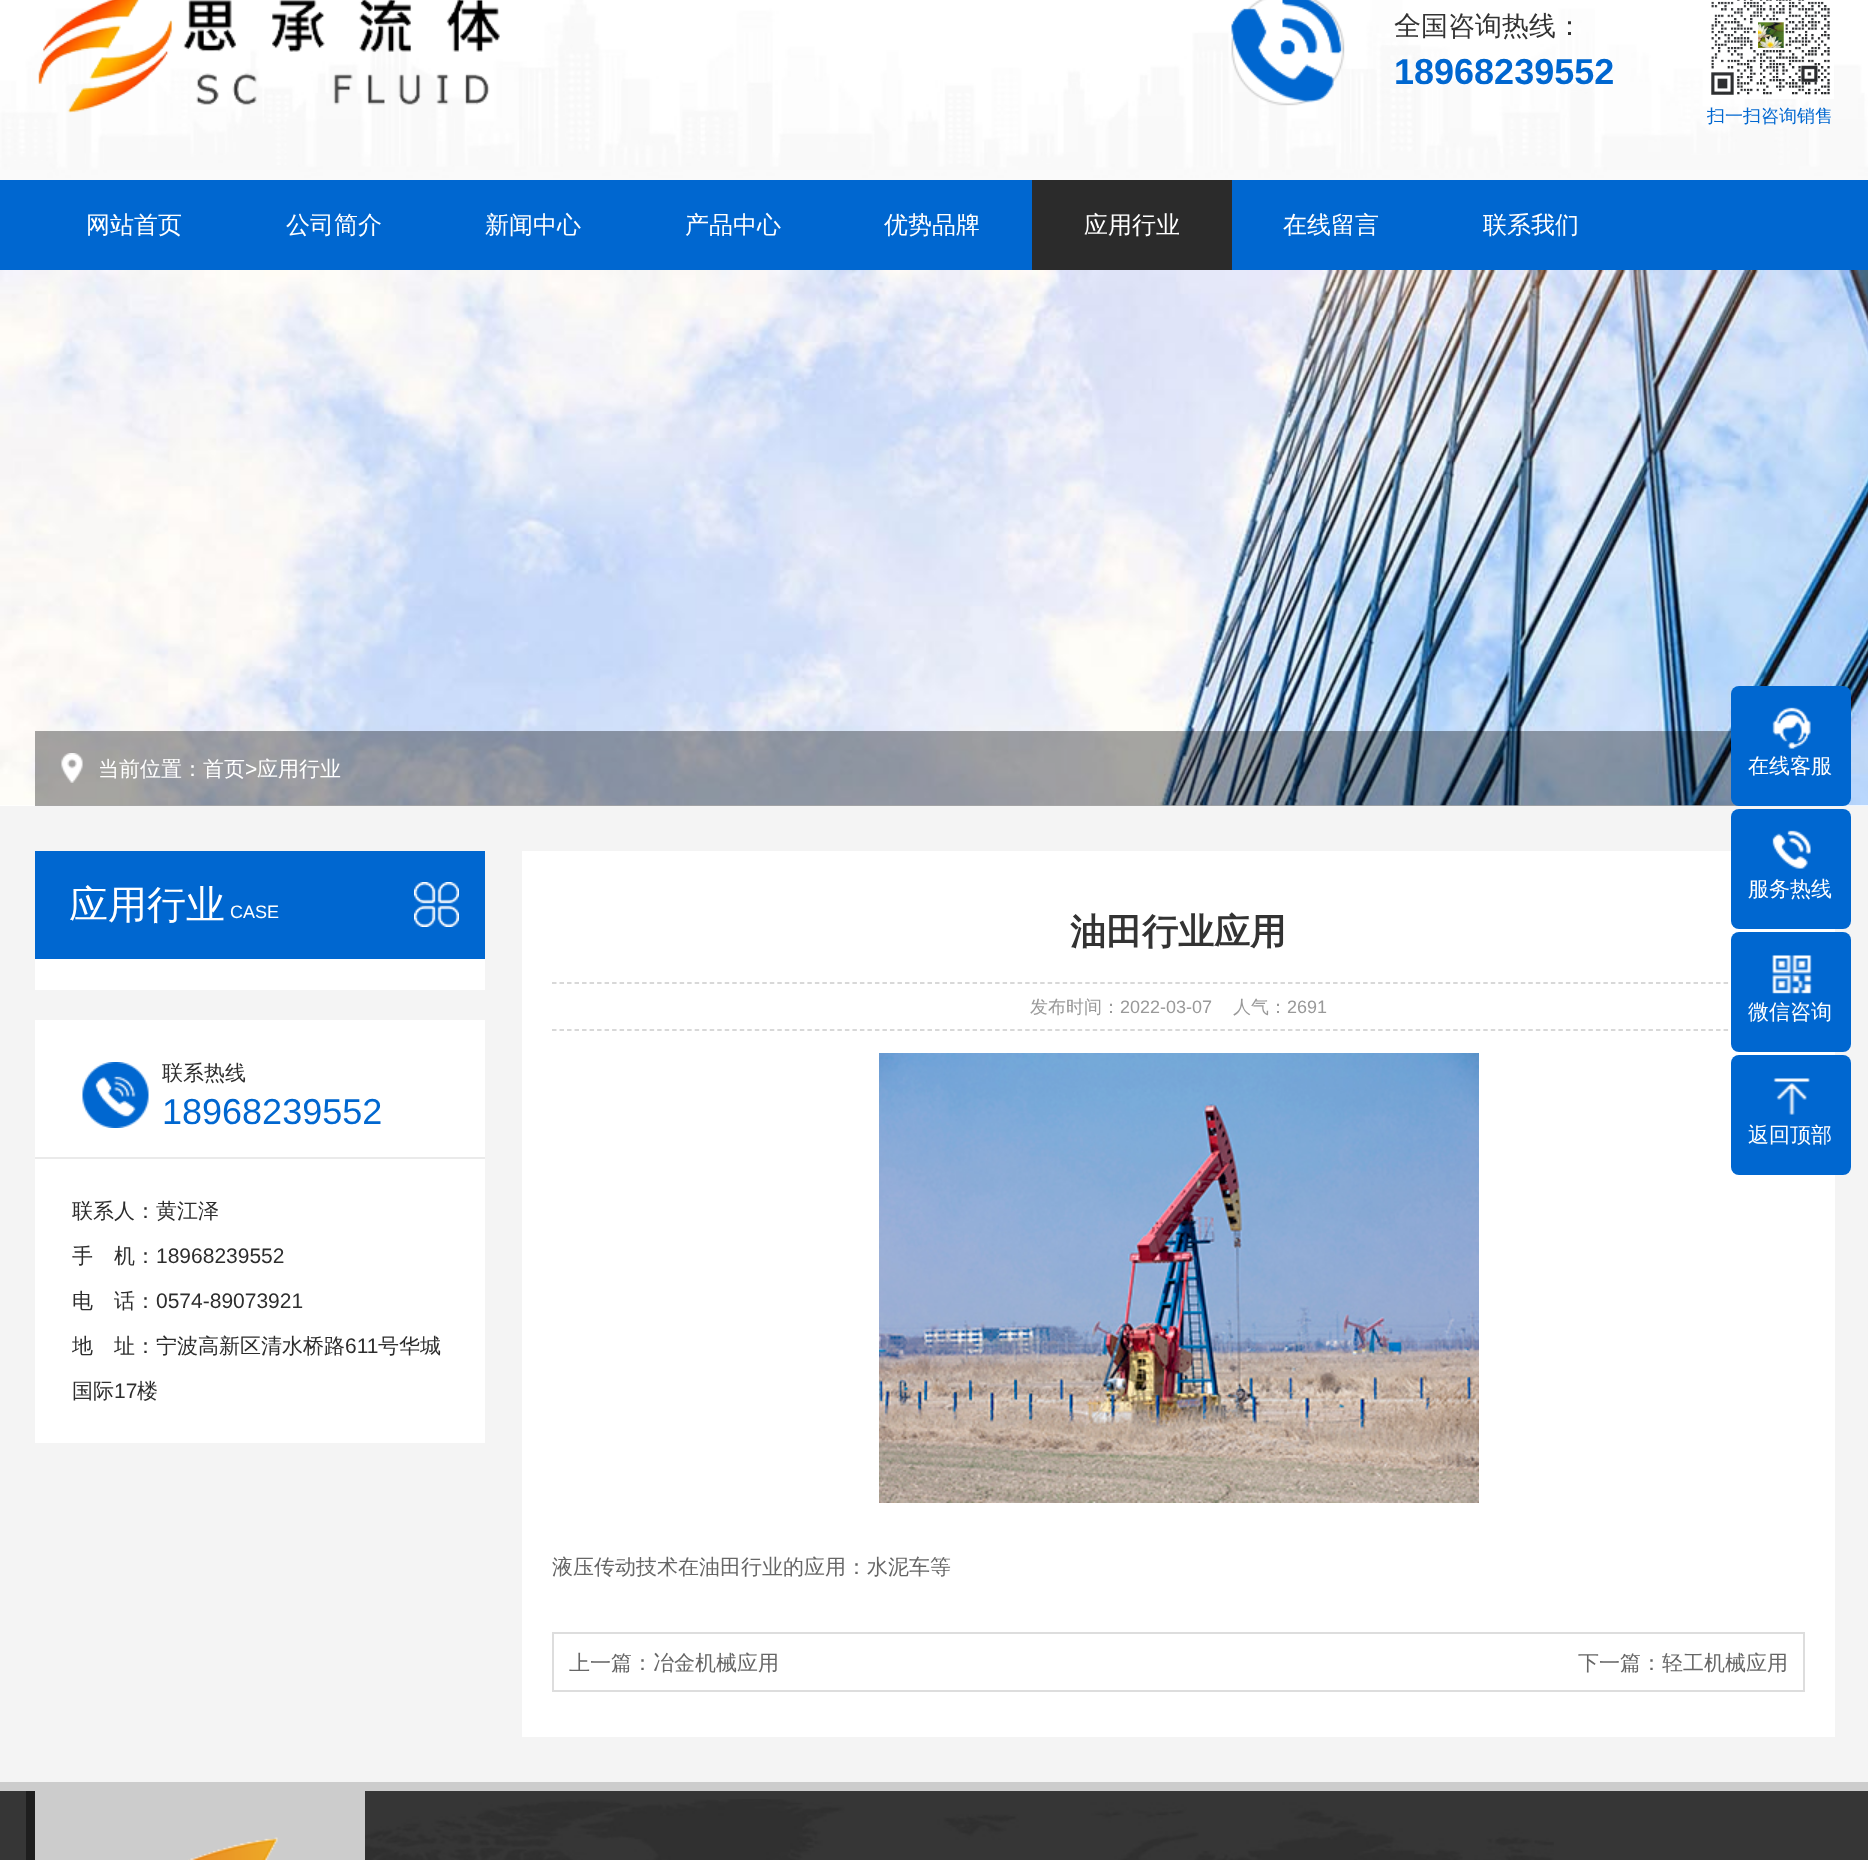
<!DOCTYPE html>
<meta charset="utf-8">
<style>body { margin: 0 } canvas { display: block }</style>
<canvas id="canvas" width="1868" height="1860"></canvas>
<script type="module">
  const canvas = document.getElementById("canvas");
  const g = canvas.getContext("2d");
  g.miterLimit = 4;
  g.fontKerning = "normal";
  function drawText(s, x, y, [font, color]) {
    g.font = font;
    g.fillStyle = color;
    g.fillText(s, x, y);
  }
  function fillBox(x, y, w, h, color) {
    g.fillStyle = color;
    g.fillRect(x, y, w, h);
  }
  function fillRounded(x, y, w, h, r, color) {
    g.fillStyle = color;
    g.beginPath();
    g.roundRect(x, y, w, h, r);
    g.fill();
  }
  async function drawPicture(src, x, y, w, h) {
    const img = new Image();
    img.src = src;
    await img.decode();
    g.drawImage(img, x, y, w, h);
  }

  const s1 = ["500 27px WenQuanYi Zen Hei", "#333333"];
  const s2 = ["bold 36px Liberation Sans", "#0067D0"];
  const s3 = ["500 18px WenQuanYi Zen Hei", "#0067D0"];
  const s4 = ["500 24px WenQuanYi Zen Hei", "#FFFFFF"];
  const s5 = ["500 21px WenQuanYi Zen Hei", "#FFFFFF"];
  const s6 = ["21px Liberation Sans", "#FFFFFF"];
  const s7 = ["500 39px WenQuanYi Zen Hei", "#FFFFFF"];
  const s8 = ["18px Liberation Sans", "#FFFFFF"];
  const s9 = ["500 21px WenQuanYi Zen Hei", "#2D2D2D"];
  const s10 = ["36px Liberation Sans", "#0067D0"];
  const s11 = ["21px Liberation Sans", "#2D2D2D"];
  const s12 = ["bold 36px WenQuanYi Zen Hei", "#333333"];
  const s13 = ["500 18px WenQuanYi Zen Hei", "#999999"];
  const s14 = ["18px Liberation Sans", "#999999"];
  const s15 = ["500 21px WenQuanYi Zen Hei", "#666666"];

  fillBox(0, 0, 1868, 1860, "#FFFFFF");
  await drawPicture("pic1.png", 0, 0, 1868, 180);
  await drawPicture("pic2.png", 38, 0, 462, 113);
  await drawPicture("pic3.png", 1231, 0, 114, 106);
  drawText("全国咨询热线：", 1394, 35, s1);
  drawText("18968239552", 1394, 84, s2);
  await drawPicture("pic4.png", 1711, 0, 123, 99);
  drawText("扫一扫咨询销售", 1707, 122, s3);
  fillBox(0, 180, 1868, 90, "#0067D0");
  drawText("网站首页", 86, 233, s4);
  drawText("公司简介", 286, 233, s4);
  drawText("新闻中心", 485, 233, s4);
  drawText("产品中心", 685, 233, s4);
  drawText("优势品牌", 884, 233, s4);
  fillBox(1032, 180, 200, 90, "#2B2B2B");
  drawText("应用行业", 1084, 233, s4);
  drawText("在线留言", 1283, 233, s4);
  drawText("联系我们", 1483, 233, s4);
  await drawPicture("pic5.png", 0, 270, 1868, 536);
  fillBox(35, 731, 1704, 75, "rgba(0, 0, 0, 0.35)");
  await drawPicture("pic6.png", 61, 753, 22, 30);
  drawText("当前位置：首页", 98, 776, s5);
  drawText(">", 245, 776, s6);
  drawText("应用行业", 257, 776, s5);
  fillRounded(1731, 686, 120, 120, 8, "#0067D0");
  await drawPicture("pic7.png", 1772, 707, 39, 42);
  drawText("在线客服", 1748, 773, s5);
  fillBox(0, 806, 1868, 976, "#F4F4F4");
  fillBox(522, 851, 1313, 886, "#FFFFFF");
  fillRounded(1731, 809, 120, 120, 8, "#0067D0");
  await drawPicture("pic8.png", 1772, 830, 39, 39);
  drawText("服务热线", 1748, 896, s5);
  g.beginPath();
  g.moveTo(552, 983);
  g.lineTo(1804.5, 983);
  g.strokeStyle = "#CCCCCC";
  g.lineWidth = 1.5;
  g.setLineDash([4.5, 3.01]);
  g.stroke();
  g.beginPath();
  g.moveTo(552, 1030);
  g.lineTo(1804.5, 1030);
  g.stroke();
  fillRounded(1731, 932, 120, 120, 8, "#0067D0");
  await drawPicture("pic9.png", 1772, 955, 40, 39);
  drawText("微信咨询", 1748, 1019, s5);
  fillRounded(1731, 1055, 120, 120, 8, "#0067D0");
  await drawPicture("pic10.png", 1773, 1078, 37, 37);
  drawText("返回顶部", 1748, 1142, s5);
  fillBox(35, 851, 450, 108, "#0067D0");
  await drawPicture("pic11.png", 414, 882, 45, 45);
  drawText("应用行业", 69, 918, s7);
  drawText("CASE", 230, 918, s8);
  fillBox(35, 959, 450, 31, "#FFFFFF");
  fillBox(35, 1020, 450, 423, "#FFFFFF");
  await drawPicture("pic12.png", 82, 1062, 67, 66);
  fillBox(35, 1157, 450, 2, "#EAEAEA");
  drawText("联系热线", 162, 1080, s9);
  drawText("18968239552", 162, 1124, s10);
  drawText("联系人：黄江泽", 72, 1218, s9);
  drawText("手　机：", 72, 1263, s9);
  drawText("18968239552", 156, 1263, s11);
  drawText("电　话：", 72, 1308, s9);
  drawText("0574-89073921", 156, 1308, s11);
  drawText("地　址：宁波高新区清水桥路", 72, 1353, s9);
  drawText("611", 345, 1353, s11);
  drawText("号华城", 378, 1353, s9);
  drawText("国际", 72, 1398, s9);
  drawText("17", 114, 1398, s11);
  drawText("楼", 137, 1398, s9);
  drawText("油田行业应用", 1070, 944, s12);
  drawText("发布时间：", 1030, 1013, s13);
  drawText("2022-03-07", 1120, 1013, s14);
  drawText("人气：", 1233, 1013, s13);
  drawText("2691", 1287, 1013, s14);
  await drawPicture("pic13.png", 879, 1053, 600, 450);
  drawText("液压传动技术在油田行业的应用：水泥车等", 552, 1574, s15);
  g.strokeStyle = "#DDDDDD";
  g.lineWidth = 2;
  g.setLineDash([]);
  g.strokeRect(553, 1633, 1251, 58);
  drawText("上一篇：冶金机械应用", 569, 1670, s15);
  drawText("下一篇：轻工机械应用", 1578, 1670, s15);
  fillBox(0, 1791, 1868, 69, "#363636");
  await drawPicture("pic14.png", 365, 1799, 1189, 61);
  fillBox(0, 1782, 1868, 9, "#CCCCCC");
  fillBox(26, 1791, 9, 69, "#1E1E1E");
  fillBox(35, 1791, 330, 69, "#CCCCCC");
  await drawPicture("pic15.png", 188, 1837, 90, 23);
</script>
